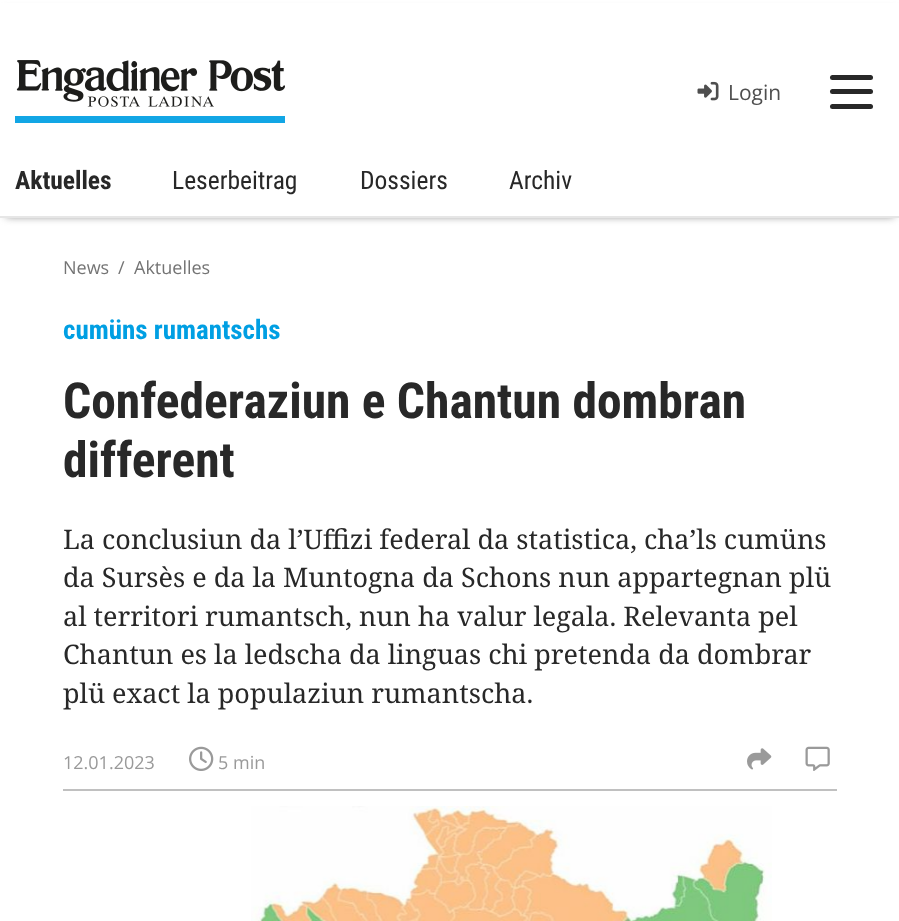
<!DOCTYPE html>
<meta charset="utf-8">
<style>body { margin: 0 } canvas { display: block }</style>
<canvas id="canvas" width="899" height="921"></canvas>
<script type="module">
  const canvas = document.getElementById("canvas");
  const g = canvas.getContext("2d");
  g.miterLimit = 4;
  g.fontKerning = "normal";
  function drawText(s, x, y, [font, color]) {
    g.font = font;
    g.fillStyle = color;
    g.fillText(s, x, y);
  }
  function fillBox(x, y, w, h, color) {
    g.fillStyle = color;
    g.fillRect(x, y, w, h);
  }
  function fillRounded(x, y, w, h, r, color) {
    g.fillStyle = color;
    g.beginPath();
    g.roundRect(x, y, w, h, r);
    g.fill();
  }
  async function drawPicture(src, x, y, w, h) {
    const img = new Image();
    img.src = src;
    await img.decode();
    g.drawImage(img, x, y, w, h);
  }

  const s1 = ["21px Open Sans", "#4E4E4E"];
  const s2 = ["bold 25.5px Roboto Condensed", "#282828"];
  const s3 = ["25.5px Roboto Condensed", "#282828"];
  const s4 = ["18px Open Sans", "#747474"];
  const s5 = ["bold 27px Roboto Condensed", "#009FE3"];
  const s6 = ["bold 49.5px Roboto Condensed", "#282828"];
  const s7 = ["27px Noto Serif", "#282828"];
  const s8 = ["18px Open Sans", "#9A9A9A"];

  fillBox(0, 0, 899, 921, "#FFFFFF");
  g.fillStyle = "#747474";
  g.filter = "blur(4px)";
  g.beginPath();
  g.rect(6, 11, 888, 205);
  g.fill();
  g.filter = "none";
  fillBox(0, 3, 899, 213, "#FFFFFF");
  await drawPicture("pic1.png", 15, 60, 270, 63);
  await drawPicture("pic2.png", 697, 81, 22, 20);
  drawText("Login", 728, 100, s1);
  fillRounded(830, 89, 43, 5, 2.5, "#282828");
  fillRounded(830, 75, 43, 5, 2.5, "#282828");
  fillRounded(830, 104, 43, 5, 2.5, "#282828");
  fillBox(0, 216, 899, 2, "#E6E6E6");
  drawText("Aktuelles", 15, 189, s2);
  drawText("Leserbeitrag", 172, 189, s3);
  drawText("Dossiers", 360, 189, s3);
  drawText("Archiv", 509, 189, s3);
  drawText("News", 63, 274, s4);
  drawText("/", 118, 274, s4);
  drawText("Aktuelles", 134, 274, s4);
  drawText("cumüns rumantschs", 63, 339, s5);
  drawText("Confederaziun e Chantun dombran", 63, 418, s6);
  drawText("different", 63, 477, s6);
  drawText("La conclusiun da l’Uffizi federal da statistica, cha’ls cumüns", 63, 549, s7);
  drawText("da Sursès e da la Muntogna da Schons nun appartegnan plü", 63, 587, s7);
  drawText("al territori rumantsch, nun ha valur legala. Relevanta pel", 63, 626, s7);
  drawText("Chantun es la ledscha da linguas chi pretenda da dombrar", 63, 664, s7);
  drawText("plü exact la populaziun rumantscha.", 63, 703, s7);
  fillBox(63, 789, 774, 2, "#C0C0C0");
  drawText("12.01.2023", 63, 769, s8);
  await drawPicture("pic3.png", 189, 746, 25, 25);
  drawText("5 min", 218, 769, s8);
  await drawPicture("pic4.png", 747, 748, 25, 22);
  await drawPicture("pic5.png", 805, 746, 25, 25);
  await drawPicture("pic6.png", 251, 806, 521, 115);
</script>
